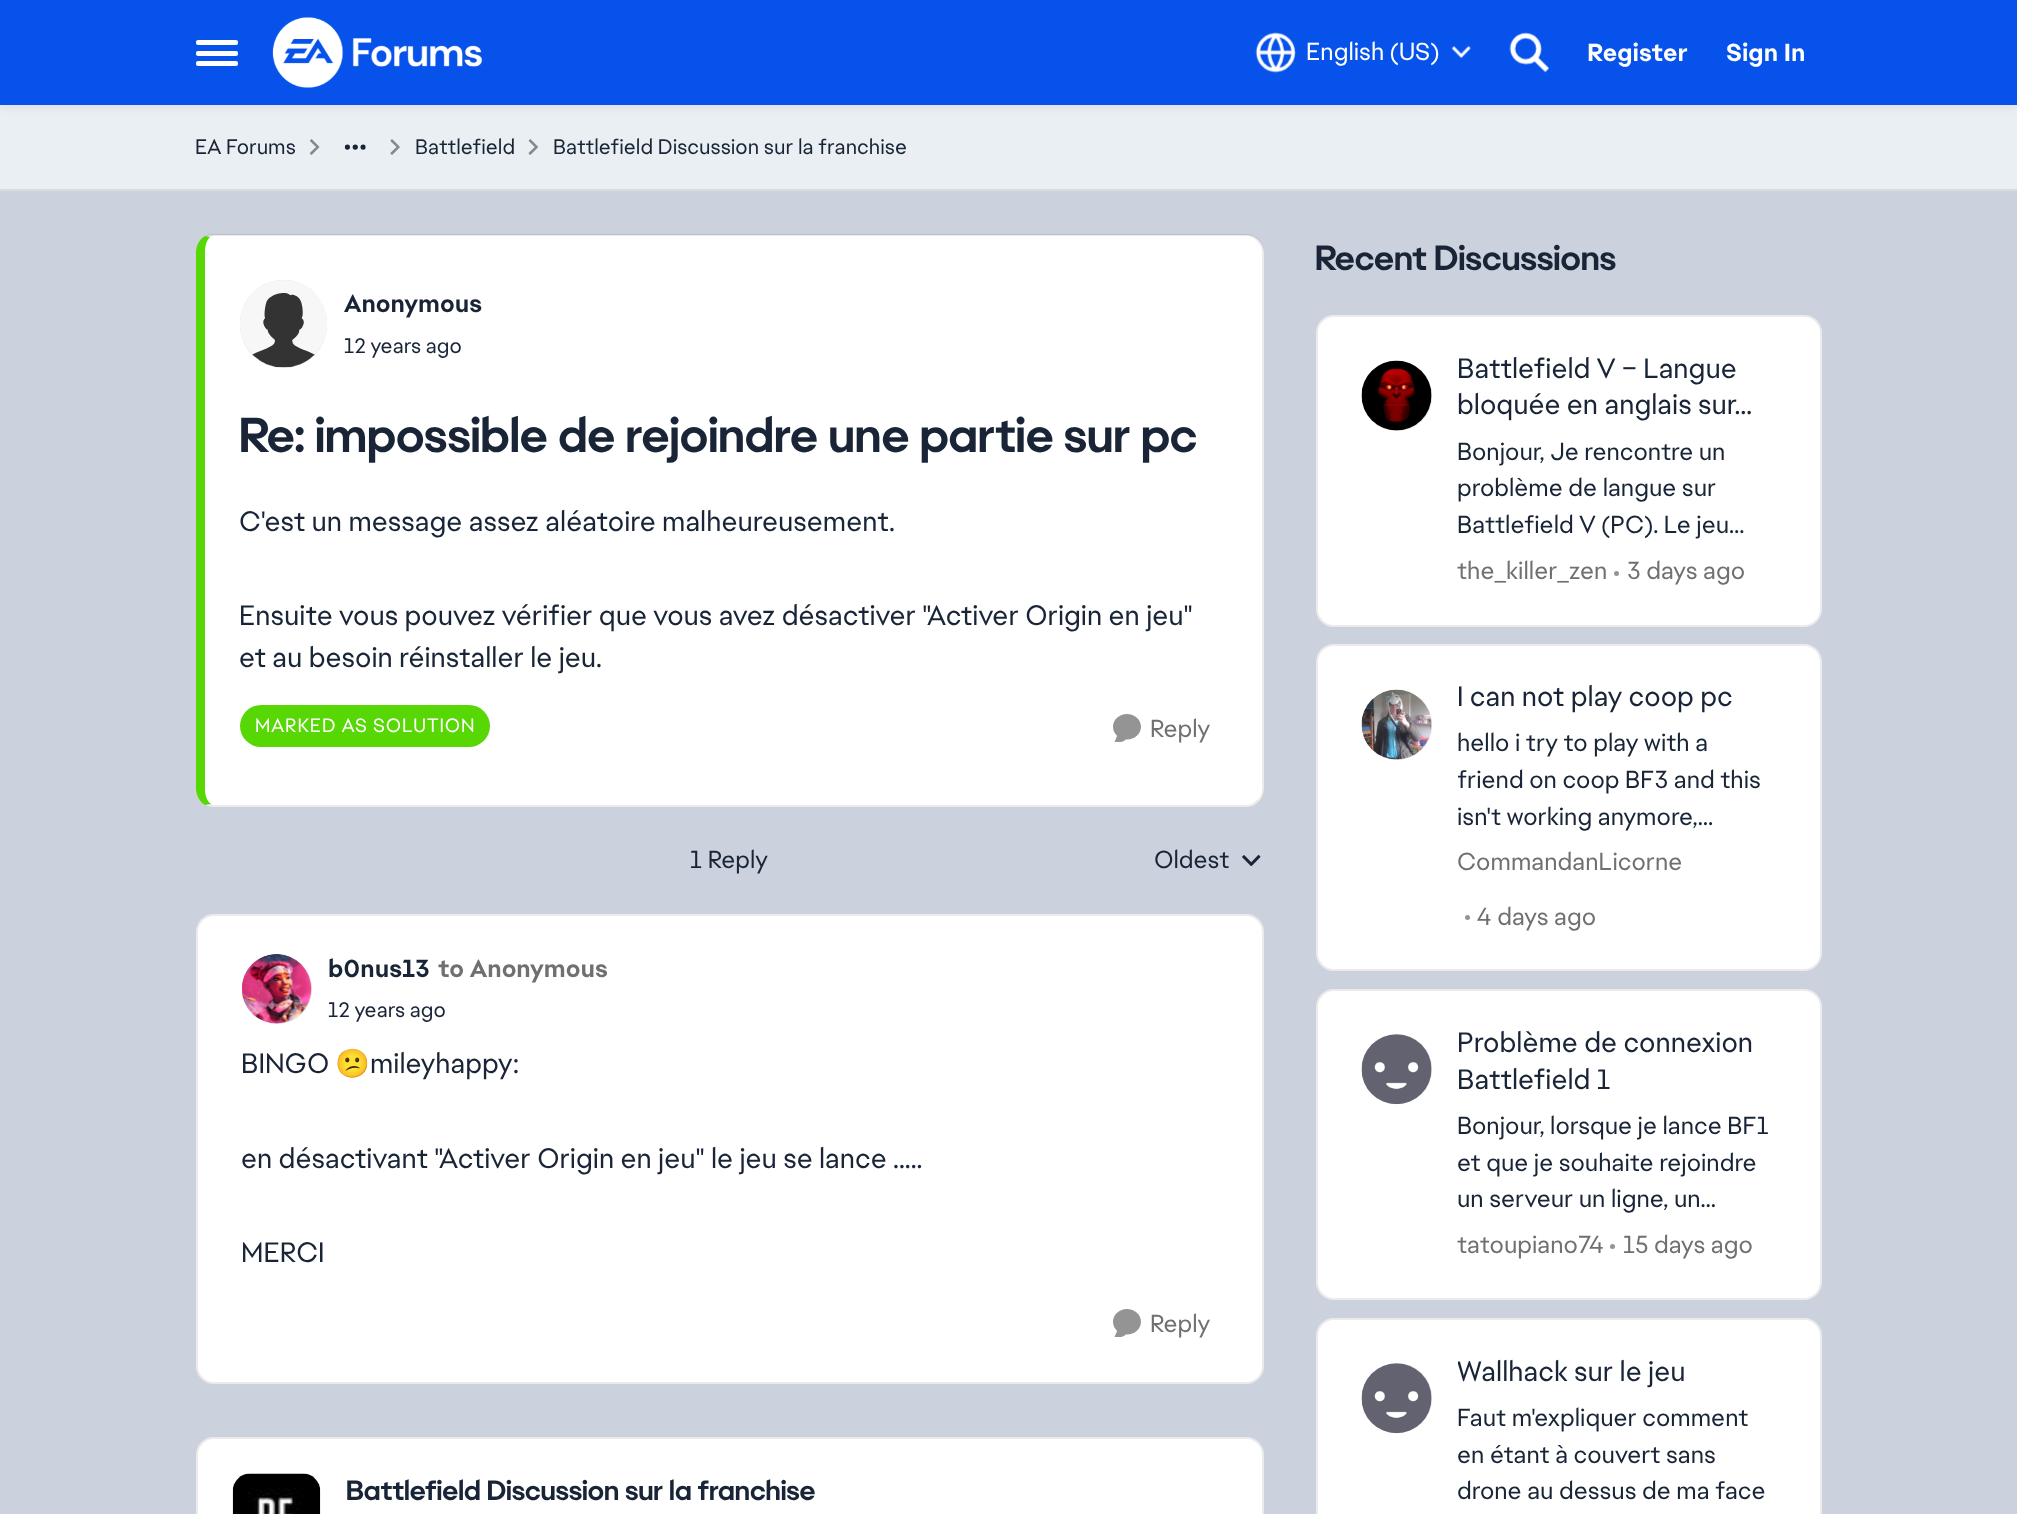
<!DOCTYPE html>
<meta charset="utf-8">
<style>body { margin: 0 } canvas { display: block }</style>
<canvas id="canvas" width="2017" height="1514"></canvas>
<script type="module">
  const canvas = document.getElementById("canvas");
  const g = canvas.getContext("2d");
  g.miterLimit = 4;
  g.fontKerning = "normal";
  function drawText(s, x, y, [font, color]) {
    g.font = font;
    g.fillStyle = color;
    g.fillText(s, x, y);
  }
  function fillBox(x, y, w, h, color) {
    g.fillStyle = color;
    g.fillRect(x, y, w, h);
  }
  function fillRounded(x, y, w, h, r, color) {
    g.fillStyle = color;
    g.beginPath();
    g.roundRect(x, y, w, h, r);
    g.fill();
  }
  async function drawPicture(src, x, y, w, h) {
    const img = new Image();
    img.src = src;
    await img.decode();
    g.drawImage(img, x, y, w, h);
  }

  const s1 = ["24.5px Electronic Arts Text", "#FFFFFF"];
  const s2 = ["bold 24.5px Electronic Arts Text", "#FFFFFF"];
  const s3 = ["21px Electronic Arts Text", "#192537"];
  const s4 = ["bold 24.5px Electronic Arts Text", "#192537"];
  const s5 = ["bold 49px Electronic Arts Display", "#192537"];
  const s6 = ["28px Electronic Arts Text", "#192537"];
  const s7 = ["19.25px Electronic Arts Text", "#FFFFFF"];
  const s8 = ["24.5px Electronic Arts Text", "#707070"];
  const s9 = ["24.5px Electronic Arts Text", "#192537"];
  const s10 = ["bold 24.5px Electronic Arts Text", "#707070"];
  const s11 = ["28px Noto Color Emoji", "#192537"];
  const s12 = ["bold 28px Electronic Arts Display", "#192537"];
  const s13 = ["bold 35px Electronic Arts Display", "#192537"];

  fillBox(0, 0, 2017, 1514, "#EAEFF4");
  g.fillStyle = "rgba(51, 51, 51, 0.06)";
  g.filter = "blur(3.5px)";
  g.beginPath();
  g.rect(0, 4, 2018, 105);
  g.fill();
  g.filter = "none";
  fillBox(0, 0, 2017, 105, "#0752EB");
  fillRounded(196, 40, 42, 5, 2, "#FFFFFF");
  fillRounded(196, 51, 42, 5, 2, "#FFFFFF");
  fillRounded(196, 61, 42, 5, 2, "#FFFFFF");
  await drawPicture("pic1.png", 272, 17, 210, 71);
  await drawPicture("pic2.png", 1255, 32, 41, 41);
  drawText("English (US)", 1306, 60, s1);
  await drawPicture("pic3.png", 1451, 46, 20, 12);
  await drawPicture("pic4.png", 1509, 32, 40, 41);
  drawText("Register", 1587, 61, s2);
  drawText("Sign In", 1726, 61, s2);
  fillBox(0, 189, 2017, 2, "#D7DCE0");
  drawText("EA Forums", 195, 154, s3);
  await drawPicture("pic5.png", 309, 139, 11, 16);
  await drawPicture("pic6.png", 344, 144, 22, 6);
  await drawPicture("pic7.png", 390, 139, 10, 16);
  drawText("Battlefield", 415, 154, s3);
  await drawPicture("pic8.png", 528, 139, 10, 16);
  drawText("Battlefield Discussion sur la franchise", 553, 154, s3);
  fillBox(0, 191, 2017, 1323, "#CBD2DE");
  fillRounded(196, 235, 1068, 572, 18, "#FFFFFF");
  g.fillStyle = "rgba(0, 0, 0, 0.08)";
  g.beginPath();
  g.moveTo(214, 236);
  g.lineTo(210, 237);
  g.lineTo(205, 236);
  g.lineTo(210, 234);
  g.lineTo(1250, 234);
  g.bezierCurveTo(1254, 235, 1256, 237, 1259, 239);
  g.lineTo(1257, 241);
  g.bezierCurveTo(1254, 238, 1250, 236, 1246, 236);
  g.closePath();
  g.fill();
  g.beginPath();
  g.moveTo(1264, 793);
  g.bezierCurveTo(1263, 797, 1261, 800, 1259, 802);
  g.lineTo(1257, 800);
  g.bezierCurveTo(1260, 798, 1262, 794, 1262, 789);
  g.lineTo(1262, 252);
  g.bezierCurveTo(1262, 248, 1260, 244, 1257, 241);
  g.lineTo(1259, 239);
  g.bezierCurveTo(1261, 242, 1263, 244, 1264, 248);
  g.closePath();
  g.fill();
  g.beginPath();
  g.moveTo(211, 807);
  g.lineTo(205, 805);
  g.lineTo(211, 804);
  g.bezierCurveTo(212, 805, 213, 805, 214, 805);
  g.lineTo(1246, 805);
  g.bezierCurveTo(1250, 805, 1254, 803, 1257, 800);
  g.lineTo(1259, 802);
  g.bezierCurveTo(1256, 804, 1253, 806, 1249, 807);
  g.closePath();
  g.fill();
  g.fillStyle = "#57D703";
  g.beginPath();
  g.moveTo(196, 252);
  g.lineTo(196, 789);
  g.bezierCurveTo(196, 796, 200, 802, 205, 805);
  g.lineTo(211, 804);
  g.bezierCurveTo(207, 801, 205, 796, 205, 789);
  g.lineTo(205, 252);
  g.bezierCurveTo(205, 245, 207, 240, 210, 237);
  g.lineTo(205, 236);
  g.bezierCurveTo(200, 239, 196, 245, 196, 252);
  g.closePath();
  g.fill();
  fillRounded(240, 280, 87, 88, 43.5, "#D9D9D9");
  await drawPicture("pic9.png", 240, 280, 87, 88);
  drawText("Anonymous", 344, 312, s4);
  drawText("12 years ago", 344, 353, s3);
  drawText("Re: impossible de rejoindre une partie sur pc", 239, 452, s5);
  drawText("C'est un message assez aléatoire malheureusement.", 239, 531, s6);
  drawText("Ensuite vous pouvez vérifier que vous avez désactiver \"Activer Origin en jeu\"", 239, 625, s6);
  drawText("et au besoin réinstaller le jeu.", 239, 667, s6);
  fillRounded(240, 705, 250, 42, 21, "#57D703");
  g.letterSpacing = "0.9px";
  drawText("MARKED AS SOLUTION", 255, 732, s7);
  await drawPicture("pic10.png", 1113, 714, 28, 28);
  g.letterSpacing = "0px";
  drawText("Reply", 1150, 737, s8);
  drawText("1 Reply", 690, 868, s9);
  drawText("Oldest", 1154, 868, s9);
  await drawPicture("pic11.png", 1242, 854, 19, 12);
  fillRounded(196, 914, 1068, 470, 18, "#FFFFFF");
  g.beginPath();
  g.roundRect(197, 915, 1066, 468, 17);
  g.strokeStyle = "rgba(0, 0, 0, 0.08)";
  g.lineWidth = 2;
  g.stroke();
  g.fillStyle = "#D9D9D9";
  g.beginPath();
  g.arc(277, 989, 35, 0, Math.PI * 2);
  g.fill();
  await drawPicture("pic12.png", 242, 954, 70, 70);
  drawText("b0nus13", 328, 977, s4);
  drawText("to Anonymous", 438, 977, s10);
  drawText("12 years ago", 328, 1017, s3);
  drawText("BINGO", 241, 1073, s6);
  drawText("😕", 335, 1073, s11);
  drawText("mileyhappy:", 370, 1073, s6);
  drawText("en désactivant \"Activer Origin en jeu\" le jeu se lance .....", 241, 1168, s6);
  drawText("MERCI", 241, 1262, s6);
  await drawPicture("pic10.png", 1113, 1309, 28, 28);
  drawText("Reply", 1150, 1332, s8);
  fillRounded(196, 1437, 1068, 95, 18, "#FFFFFF");
  g.beginPath();
  g.roundRect(197, 1438, 1066, 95, 17);
  g.stroke();
  await drawPicture("pic13.png", 232, 1473, 89, 41);
  drawText("Battlefield Discussion sur la franchise", 346, 1500, s12);
  drawText("Recent Discussions", 1315, 270, s13);
  fillRounded(1316, 315, 506, 312, 18, "#FFFFFF");
  g.beginPath();
  g.roundRect(1317, 316, 504, 310, 17);
  g.stroke();
  g.fillStyle = "#D9D9D9";
  g.beginPath();
  g.arc(1397, 396, 35, 0, Math.PI * 2);
  g.fill();
  await drawPicture("pic14.png", 1361, 360, 71, 71);
  drawText("Battlefield V – Langue", 1457, 378, s6);
  drawText("bloquée en anglais sur…", 1457, 414, s6);
  drawText("Bonjour, Je rencontre un", 1457, 460, s9);
  drawText("problème de langue sur", 1457, 496, s9);
  drawText("Battlefield V (PC). Le jeu…", 1457, 533, s9);
  drawText("the_killer_zen", 1457, 579, s8);
  g.fillStyle = "#949494";
  g.beginPath();
  g.arc(1616.5, 573.5, 2.5, 0, Math.PI * 2);
  g.fill();
  drawText("3 days ago", 1627, 579, s8);
  fillRounded(1316, 644, 506, 327, 18, "#FFFFFF");
  g.beginPath();
  g.roundRect(1317, 645, 504, 325, 17);
  g.stroke();
  g.fillStyle = "#D9D9D9";
  g.beginPath();
  g.arc(1397, 725, 35, 0, Math.PI * 2);
  g.fill();
  await drawPicture("pic15.png", 1361, 689, 71, 71);
  drawText("I can not play coop pc", 1457, 706, s6);
  drawText("hello i try to play with a", 1457, 751, s9);
  g.save();
  g.beginPath();
  g.rect(1458, 725, 318, 110);
  g.clip();
  drawText("friend on coop BF3 and this", 1457, 788, s9);
  g.restore();
  drawText("isn't working anymore,…", 1457, 825, s9);
  drawText("CommandanLicorne", 1457, 870, s8);
  g.fillStyle = "#949494";
  g.beginPath();
  g.arc(1467.5, 917.5, 2.5, 0, Math.PI * 2);
  g.fill();
  drawText("4 days ago", 1476, 925, s8);
  fillRounded(1316, 989, 506, 311, 18, "#FFFFFF");
  g.beginPath();
  g.roundRect(1317, 990, 504, 309, 17);
  g.stroke();
  g.fillStyle = "#D9D9D9";
  g.beginPath();
  g.arc(1397, 1069, 35, 0, Math.PI * 2);
  g.fill();
  await drawPicture("pic16.png", 1361, 1034, 71, 71);
  drawText("Problème de connexion", 1457, 1052, s6);
  drawText("Battlefield 1", 1457, 1089, s6);
  drawText("Bonjour, lorsque je lance BF1", 1457, 1134, s9);
  drawText("et que je souhaite rejoindre", 1457, 1171, s9);
  drawText("un serveur un ligne, un…", 1457, 1207, s9);
  drawText("tatoupiano74", 1457, 1253, s8);
  g.fillStyle = "#949494";
  g.beginPath();
  g.arc(1612.5, 1246.5, 2.5, 0, Math.PI * 2);
  g.fill();
  drawText("15 days ago", 1623, 1253, s8);
  fillRounded(1316, 1318, 506, 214, 18, "#FFFFFF");
  g.beginPath();
  g.roundRect(1317, 1319, 504, 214, 17);
  g.stroke();
  g.fillStyle = "#D9D9D9";
  g.beginPath();
  g.arc(1397, 1398, 35, 0, Math.PI * 2);
  g.fill();
  await drawPicture("pic16.png", 1361, 1363, 71, 71);
  g.save();
  g.beginPath();
  g.rect(1458, 1355, 227, 36);
  g.clip();
  drawText("Wallhack sur le jeu", 1457, 1381, s6);
  g.restore();
  drawText("Faut m'expliquer comment", 1457, 1426, s9);
  drawText("en étant à couvert sans", 1457, 1463, s9);
  drawText("drone au dessus de ma face", 1457, 1499, s9);
</script>
